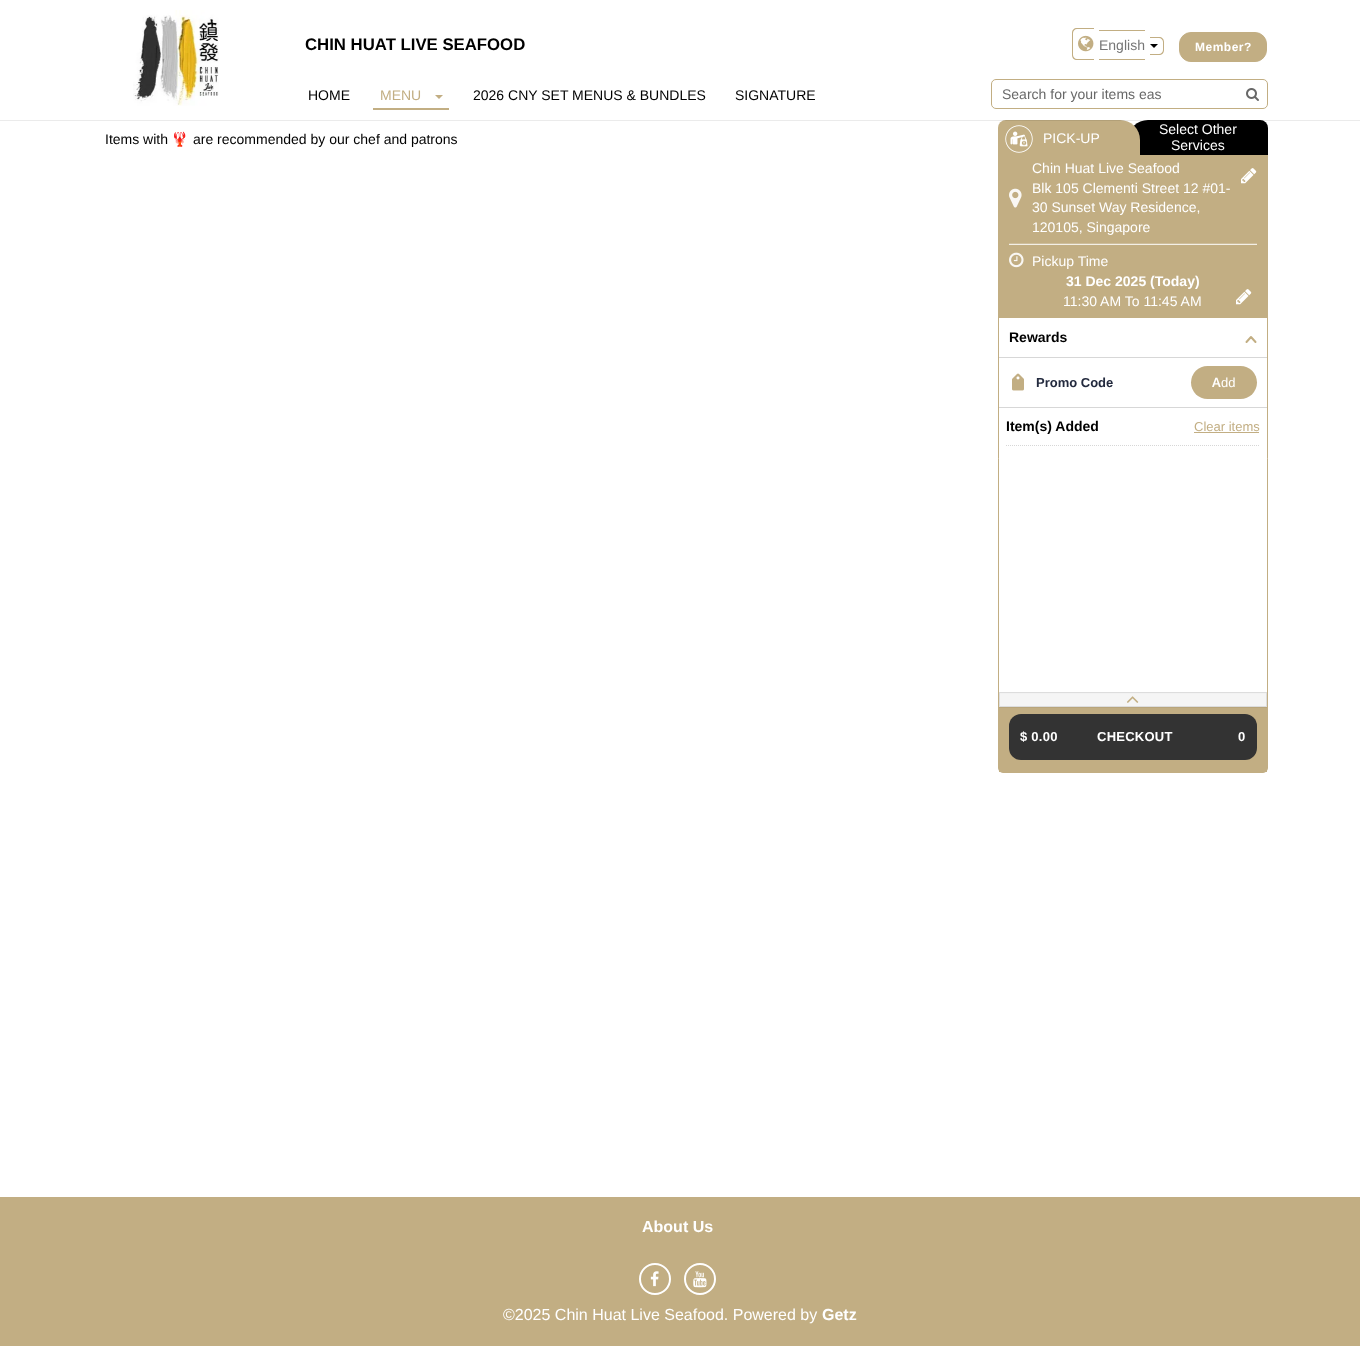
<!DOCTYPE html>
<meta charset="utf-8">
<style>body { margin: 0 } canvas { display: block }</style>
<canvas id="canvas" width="1360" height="1346"></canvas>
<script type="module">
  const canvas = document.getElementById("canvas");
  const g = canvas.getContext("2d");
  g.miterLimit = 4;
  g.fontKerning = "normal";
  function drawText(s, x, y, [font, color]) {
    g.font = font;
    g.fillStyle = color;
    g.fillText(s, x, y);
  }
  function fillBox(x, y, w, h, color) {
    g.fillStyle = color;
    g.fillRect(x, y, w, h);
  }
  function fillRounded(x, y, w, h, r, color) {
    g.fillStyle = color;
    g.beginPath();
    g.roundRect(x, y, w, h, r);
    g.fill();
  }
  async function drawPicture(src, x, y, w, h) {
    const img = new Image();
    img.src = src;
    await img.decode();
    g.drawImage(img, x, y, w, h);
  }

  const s1 = ["bold 16.75px Liberation Sans", "#000000"];
  const s2 = ["14px Liberation Sans", "#767676"];
  const s3 = ["bold 12px Liberation Sans", "#FFFFFF"];
  const s4 = ["14px Liberation Sans", "#686868"];
  const s5 = ["14px Liberation Sans", "#000000"];
  const s6 = ["14px Liberation Sans", "#C2AE83"];
  const s7 = ["14px Noto Color Emoji", "#000000"];
  const s8 = ["14px Liberation Sans", "#FFFFFF"];
  const s9 = ["bold 14px Liberation Sans", "#FFFFFF"];
  const s10 = ["bold 14px Liberation Sans", "#000000"];
  const s11 = ["bold 13px Liberation Sans", "#232A3E"];
  const s12 = ["600 13px Noto Sans", "#FFFFFF"];
  const s13 = ["13px Liberation Sans", "#FFFFFF"];
  const s14 = ["13px Liberation Sans", "#C2AE83"];
  const s15 = ["bold 13px Liberation Sans", "#FFFFFF"];
  const s16 = ["bold 16px Liberation Sans", "#FFFFFF"];
  const s17 = ["16px Liberation Sans", "#FFFFFF"];

  fillBox(0, 0, 1360, 1346, "#FFFFFF");
  g.beginPath();
  g.roundRect(998.5, 148.5, 269, 624, [0, 0, 4.5, 4.5]);
  g.strokeStyle = "#C2AE83";
  g.stroke();
  g.fillStyle = "#000000";
  g.beginPath();
  g.roundRect(1128, 120, 140, 35, [20, 8, 0, 0]);
  g.fill();
  g.fillStyle = "#C2AE83";
  g.beginPath();
  g.roundRect(998, 120, 142, 35, [8, 20, 0, 0]);
  g.fill();
  g.save();
  g.beginPath();
  g.rect(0, 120, 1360, 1);
  g.clip();
  g.fillStyle = "rgba(0, 0, 0, 0.08)";
  g.filter = "blur(0.5px)";
  g.beginPath();
  g.rect(0, 1, 1360, 120);
  g.fill();
  g.filter = "none";
  g.restore();
  await drawPicture("pic1.png", 133, 10, 86, 96);
  drawText("CHIN HUAT LIVE SEAFOOD", 305, 50, s1);
  g.fillStyle = "#C2AE83";
  g.beginPath();
  g.moveTo(1077, 28);
  g.lineTo(1094, 28);
  g.lineTo(1094, 60);
  g.lineTo(1077, 60);
  g.bezierCurveTo(1074, 60, 1072, 58, 1072, 55);
  g.lineTo(1072, 33);
  g.bezierCurveTo(1072, 30, 1074, 28, 1077, 28);
  g.closePath();
  g.moveTo(1077, 29);
  g.lineTo(1094, 29);
  g.lineTo(1094, 59);
  g.lineTo(1077, 59);
  g.bezierCurveTo(1075, 59, 1073, 57, 1073, 55);
  g.lineTo(1073, 33);
  g.bezierCurveTo(1073, 31, 1075, 29, 1077, 29);
  g.closePath();
  g.fill("evenodd");
  fillBox(1099, 30, 46, 1, "#C2AE83");
  fillBox(1099, 59, 46, 1, "#C2AE83");
  g.beginPath();
  g.moveTo(1150, 37);
  g.lineTo(1159, 37);
  g.bezierCurveTo(1162, 37, 1164, 39, 1164, 42);
  g.lineTo(1164, 50);
  g.bezierCurveTo(1164, 53, 1162, 55, 1159, 55);
  g.lineTo(1150, 55);
  g.closePath();
  g.moveTo(1150, 38);
  g.lineTo(1159, 38);
  g.bezierCurveTo(1161, 38, 1163, 40, 1163, 42);
  g.lineTo(1163, 50);
  g.bezierCurveTo(1163, 52, 1161, 54, 1159, 54);
  g.lineTo(1150, 54);
  g.closePath();
  g.fill("evenodd");
  await drawPicture("pic2.png", 1078, 35, 16, 17);
  drawText("English", 1099, 50, s2);
  g.fillStyle = "#000000";
  g.beginPath();
  g.moveTo(1150, 44);
  g.lineTo(1158, 44);
  g.lineTo(1154, 48);
  g.closePath();
  g.fill();
  g.fillStyle = "#C2AE83";
  g.beginPath();
  g.roundRect(1179.5, 32.5, 87, 29, 11.5);
  g.fill();
  g.stroke();
  g.letterSpacing = "0.5px";
  drawText("Member?", 1195, 51, s3);
  g.beginPath();
  g.roundRect(991.5, 79.5, 276, 29, 4.5);
  g.stroke();
  g.letterSpacing = "0px";
  drawText("Search for your items eas", 1002, 99, s4);
  await drawPicture("pic3.png", 1246, 88, 13, 13);
  drawText("HOME", 308, 100, s5);
  drawText("MENU", 380, 100, s6);
  g.beginPath();
  g.moveTo(435, 95);
  g.lineTo(443, 95);
  g.lineTo(439, 99);
  g.closePath();
  g.fill();
  fillBox(373, 108, 76, 2, "#C2AE83");
  drawText("2026 CNY SET MENUS & BUNDLES", 473, 100, s5);
  drawText("SIGNATURE", 735, 100, s5);
  drawText("Items with", 105, 144, s5);
  drawText("🦞", 171, 144, s7);
  drawText("are recommended by our chef and patrons", 193, 144, s5);
  await drawPicture("pic4.png", 1005, 125, 28, 28);
  drawText("PICK-UP", 1043, 143, s8);
  drawText("Select Other", 1159, 134, s8);
  drawText("Services", 1171, 150, s8);
  fillBox(999, 155, 268, 163, "#C2AE83");
  drawText("Chin Huat Live Seafood", 1032, 173, s8);
  drawText("Blk 105 Clementi Street 12 #01-", 1032, 193, s8);
  drawText("30 Sunset Way Residence,", 1032, 212, s8);
  drawText("120105, Singapore", 1032, 232, s8);
  await drawPicture("pic5.png", 1241, 168, 16, 16);
  await drawPicture("pic6.png", 1009, 188, 13, 20);
  fillBox(1009, 243, 248, 1, "#CEBE9C");
  fillBox(1009, 244, 248, 1, "#F3EFE6");
  await drawPicture("pic7.png", 1009, 252, 15, 16);
  drawText("Pickup Time", 1032, 266, s8);
  drawText("31 Dec 2025 (Today)", 1066, 286, s9);
  drawText("11:30 AM To 11:45 AM", 1063, 306, s8);
  await drawPicture("pic5.png", 1236, 289, 16, 16);
  fillBox(999, 407, 268, 1, "#D7D7D7");
  fillBox(999, 357, 268, 1, "#D7D7D7");
  drawText("Rewards", 1009, 342, s10);
  g.beginPath();
  g.moveTo(1246.5, 342);
  g.lineTo(1251, 337);
  g.lineTo(1255.5, 342);
  g.lineWidth = 2;
  g.lineCap = "round";
  g.lineJoin = "round";
  g.stroke();
  await drawPicture("pic8.png", 1012, 373, 12, 18);
  drawText("Promo Code", 1036, 387, s11);
  fillRounded(1191, 366, 66, 33, 16.5, "#C2AE83");
  drawText("A", 1212, 387, s12);
  drawText("dd", 1221, 387, s13);
  g.beginPath();
  g.moveTo(1006, 445.5);
  g.lineTo(1260, 445.5);
  g.strokeStyle = "#D7D7D7";
  g.lineWidth = 1;
  g.lineCap = "butt";
  g.lineJoin = "miter";
  g.setLineDash([1, 1]);
  g.stroke();
  drawText("Item(s) Added", 1006, 431, s10);
  drawText("Clear items", 1194, 431, s14);
  fillBox(1194, 432, 65, 1, "#C2AE83");
  fillBox(999, 707, 268, 65, "#C2AE83");
  g.fillStyle = "rgba(0, 0, 0, 0.05)";
  g.filter = "blur(0.5px)";
  g.beginPath();
  g.rect(999, 693, 268, 15);
  g.fill();
  g.filter = "none";
  fillBox(1000, 694, 266, 12, "#F5F5F5");
  g.strokeStyle = "#DDDDDD";
  g.setLineDash([]);
  g.strokeRect(999.5, 692.5, 267, 14);
  await drawPicture("pic9.png", 1127, 696, 12, 7);
  fillRounded(1009, 714, 248, 46, 12, "#333333");
  g.letterSpacing = "0.25px";
  drawText("$ 0.00", 1020, 741, s15);
  drawText("CHECKOUT", 1097, 741, s15);
  drawText("0", 1238, 741, s15);
  fillBox(0, 1197, 1360, 149, "#C2AE83");
  g.letterSpacing = "0px";
  drawText("About Us", 642, 1232, s16);
  g.beginPath();
  g.arc(655, 1279, 15, 0, Math.PI * 2);
  g.strokeStyle = "#FFFFFF";
  g.lineWidth = 2;
  g.stroke();
  await drawPicture("pic10.png", 650, 1271, 9, 16);
  g.beginPath();
  g.arc(700, 1279, 15, 0, Math.PI * 2);
  g.stroke();
  await drawPicture("pic11.png", 693, 1271, 14, 17);
  drawText("©2025 Chin Huat Live Seafood. Powered by", 503, 1320, s17);
  drawText("Getz", 822, 1320, s16);
</script>
